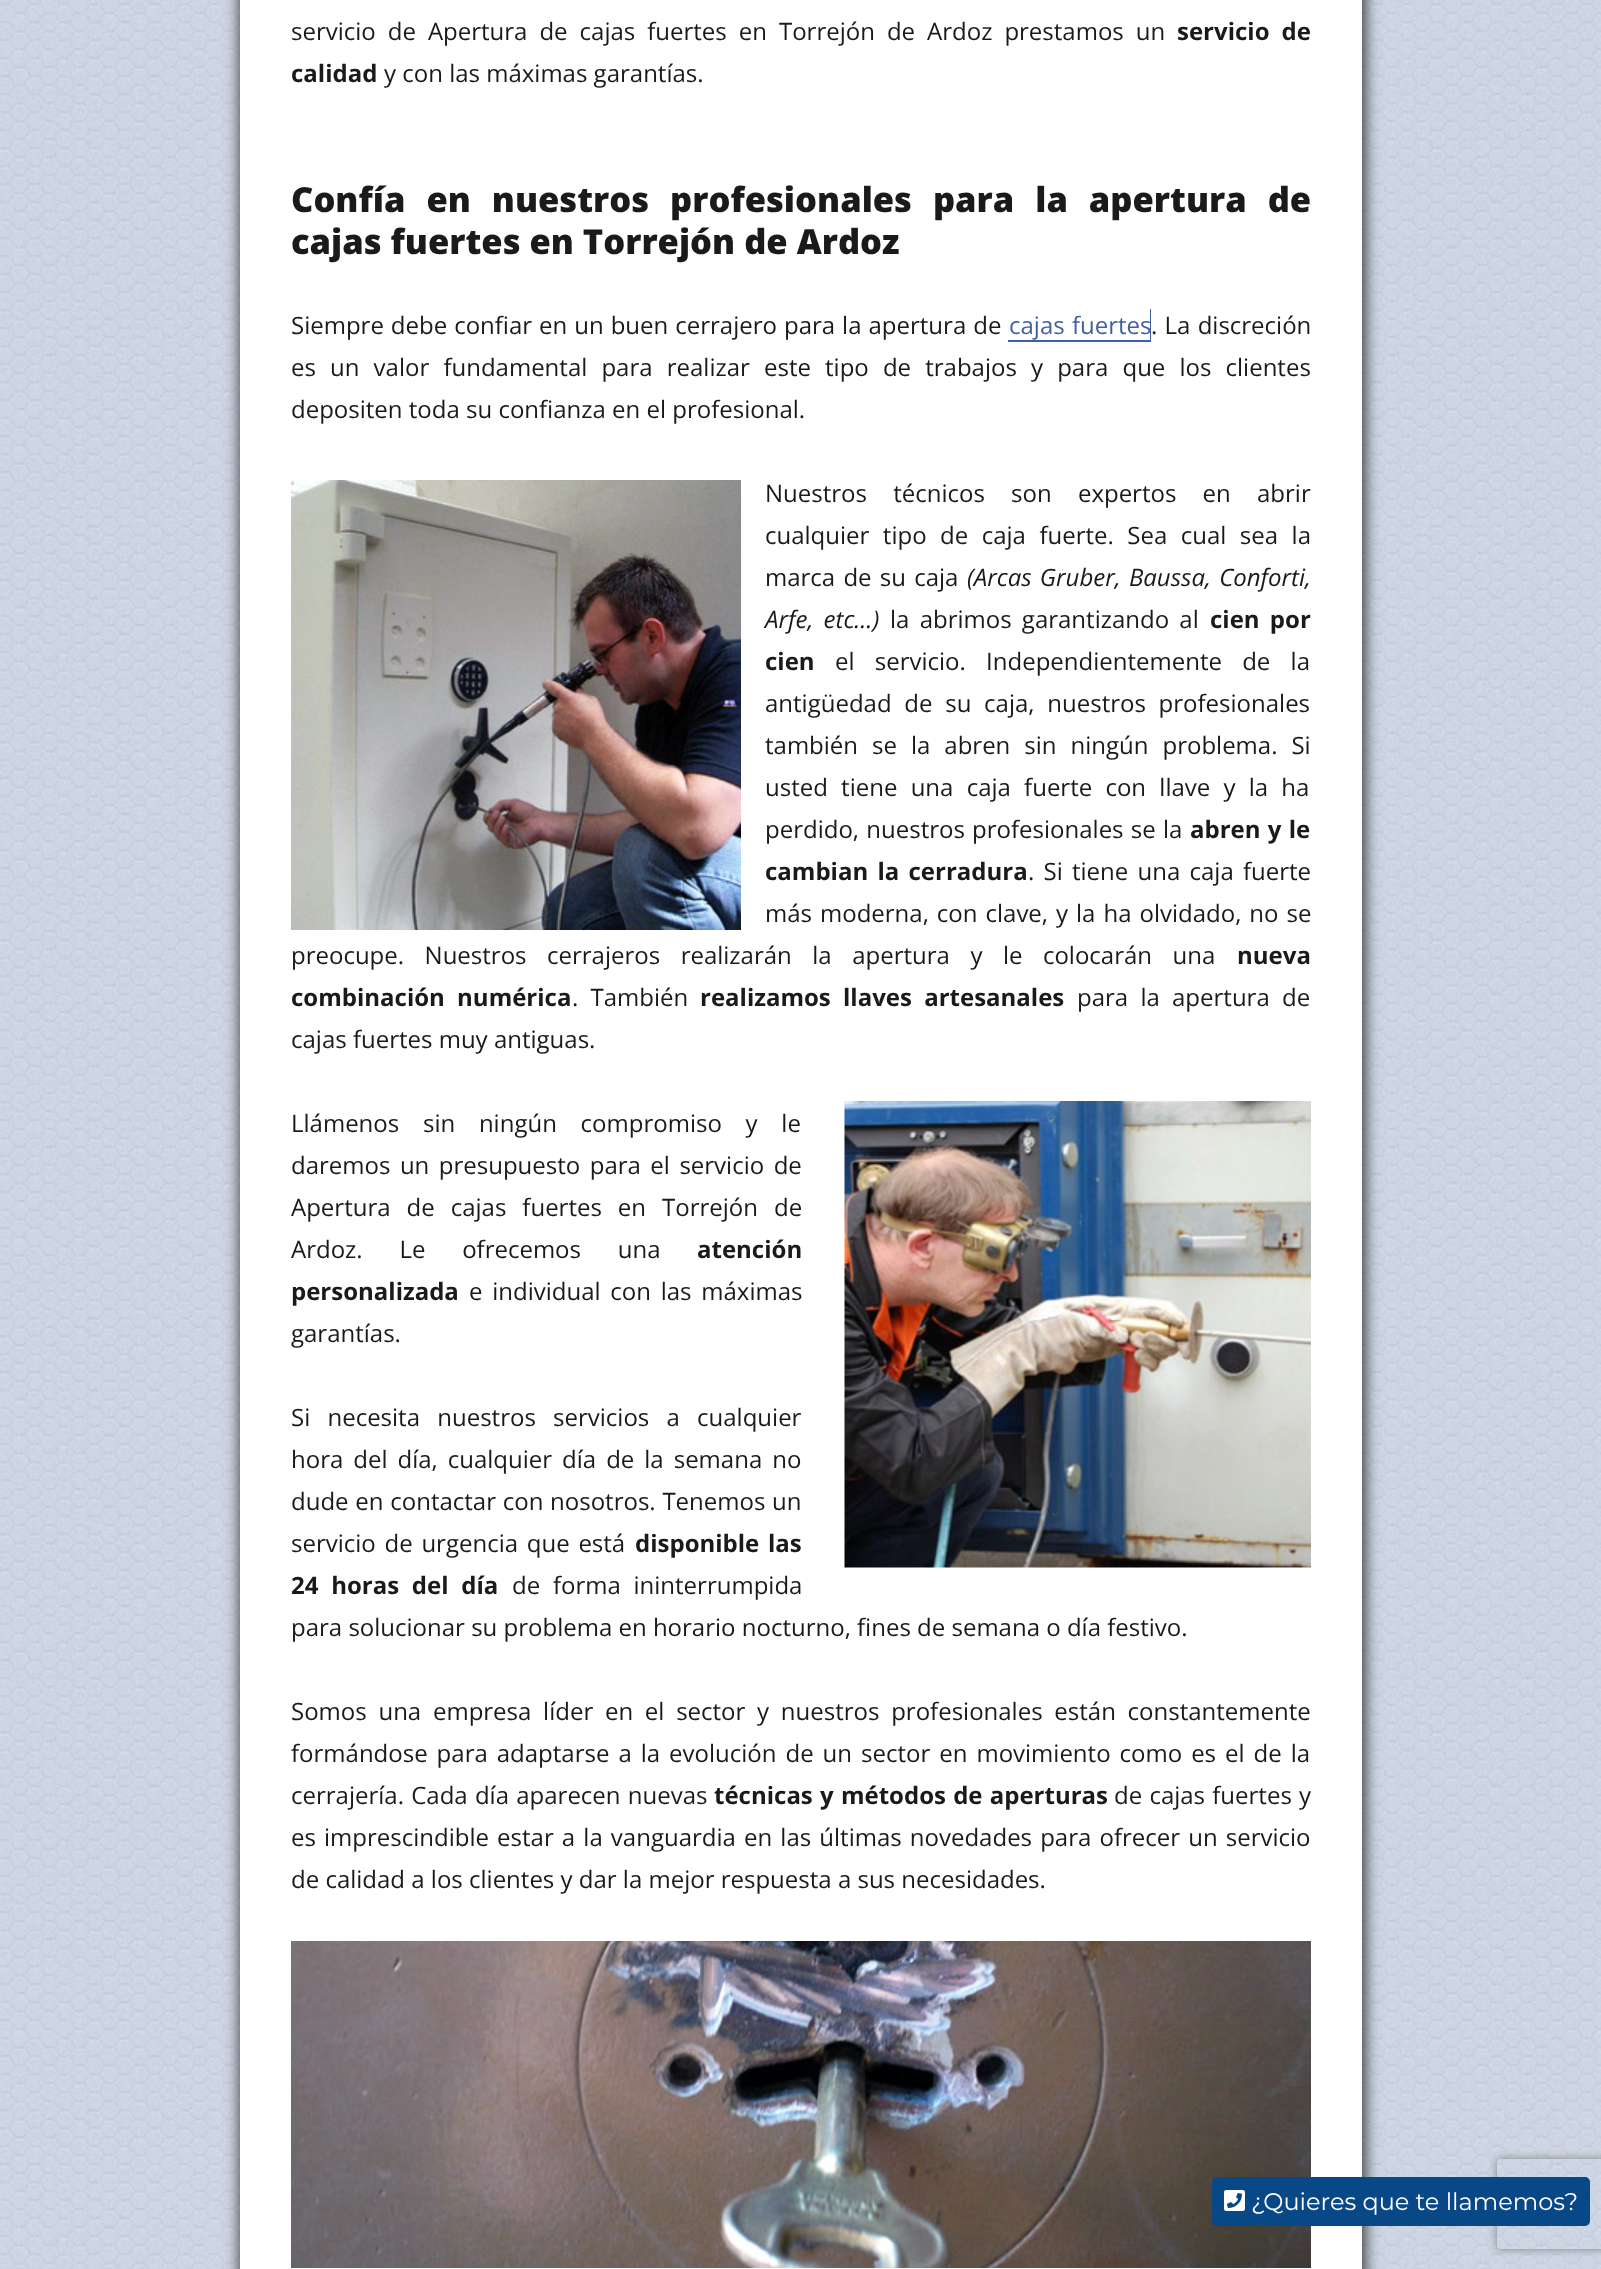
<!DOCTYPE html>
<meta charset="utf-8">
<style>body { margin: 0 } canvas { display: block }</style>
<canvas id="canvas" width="1601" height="2269"></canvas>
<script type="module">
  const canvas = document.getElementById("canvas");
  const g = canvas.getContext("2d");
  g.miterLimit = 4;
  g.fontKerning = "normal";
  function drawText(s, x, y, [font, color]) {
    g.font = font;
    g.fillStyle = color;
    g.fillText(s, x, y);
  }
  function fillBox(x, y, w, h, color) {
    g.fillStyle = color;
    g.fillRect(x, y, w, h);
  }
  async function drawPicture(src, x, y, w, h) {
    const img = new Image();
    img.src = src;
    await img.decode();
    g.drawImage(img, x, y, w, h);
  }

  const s1 = ["24px Open Sans", "#1A1A1A"];
  const s2 = ["bold 24px Open Sans", "#1A1A1A"];
  const s3 = ["800 34.5px Open Sans", "#1A1A1A"];
  const s4 = ["24px Open Sans", "#405FA5"];
  const s5 = ["italic 24px Open Sans", "#1A1A1A"];
  const s6 = ["24px Montserrat", "#FFFFFF"];

  fillBox(0, 0, 1601, 2269, "#FFFFFF");
  await drawPicture("pic1.png", 0, 0, 1601, 2269);
  g.fillStyle = "#333333";
  g.filter = "blur(7.5px)";
  g.beginPath();
  g.rect(240, -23, 1125, 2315);
  g.fill();
  g.filter = "none";
  fillBox(240, 0, 1122, 2269, "#FFFFFF");
  g.wordSpacing = "5.75px";
  drawText("servicio de Apertura de cajas fuertes en Torrejón de Ardoz prestamos un", 291, 40, s1);
  drawText("servicio de", 1177, 40, s2);
  g.wordSpacing = "0px";
  drawText("calidad", 291, 82, s2);
  drawText("y con las máximas garantías.", 384, 82, s1);
  g.wordSpacing = "12px";
  drawText("Confía en nuestros profesionales para la apertura de", 291, 212, s3);
  g.wordSpacing = "0px";
  drawText("cajas fuertes en Torrejón de Ardoz", 291, 254, s3);
  g.wordSpacing = "0.75px";
  drawText("Siempre debe confiar en un buen cerrajero para la apertura de", 291, 334, s1);
  g.fillStyle = "#405FA5";
  g.beginPath();
  g.moveTo(1008, 340);
  g.lineTo(1008, 342);
  g.lineTo(1151, 342);
  g.lineTo(1151, 309);
  g.lineTo(1150, 309);
  g.lineTo(1150, 340);
  g.closePath();
  g.fill();
  g.wordSpacing = "1px";
  drawText("cajas fuertes", 1009, 334, s4);
  drawText(". La discreción", 1151, 334, s1);
  g.wordSpacing = "7.9px";
  drawText("es un valor fundamental para realizar este tipo de trabajos y para que los clientes", 291, 376, s1);
  g.wordSpacing = "0px";
  drawText("depositen toda su confianza en el profesional.", 291, 418, s1);
  await drawPicture("pic2.png", 291, 480, 450, 450);
  g.wordSpacing = "20px";
  drawText("Nuestros técnicos son expertos en abrir", 765, 502, s1);
  g.wordSpacing = "7.25px";
  drawText("cualquier tipo de caja fuerte. Sea cual sea la", 765, 544, s1);
  g.wordSpacing = "2px";
  drawText("marca de su caja", 765, 586, s1);
  drawText("(Arcas Gruber, Baussa, Conforti,", 967, 586, s5);
  g.wordSpacing = "4px";
  drawText("Arfe, etc…)", 765, 628, s5);
  drawText("la abrimos garantizando al", 890, 628, s1);
  drawText("cien por", 1210, 628, s2);
  g.wordSpacing = "0px";
  drawText("cien", 765, 670, s2);
  g.wordSpacing = "14px";
  drawText("el servicio. Independientemente de la", 835, 670, s1);
  g.wordSpacing = "6.5px";
  drawText("antigüedad de su caja, nuestros profesionales", 765, 712, s1);
  g.wordSpacing = "7.75px";
  drawText("también se la abren sin ningún problema. Si", 765, 754, s1);
  g.wordSpacing = "7px";
  drawText("usted tiene una caja fuerte con llave y la ha", 765, 796, s1);
  g.wordSpacing = "1px";
  drawText("perdido, nuestros profesionales se la", 765, 838, s1);
  drawText("abren y le", 1190, 838, s2);
  g.wordSpacing = "3px";
  drawText("cambian la cerradura", 765, 880, s2);
  drawText(". Si tiene una caja fuerte", 1028, 880, s1);
  g.wordSpacing = "1.75px";
  drawText("más moderna, con clave, y la ha olvidado, no se", 765, 922, s1);
  g.wordSpacing = "14.25px";
  drawText("preocupe. Nuestros cerrajeros realizarán la apertura y le colocarán una", 291, 964, s1);
  g.wordSpacing = "0px";
  drawText("nueva", 1237, 964, s2);
  g.wordSpacing = "6px";
  drawText("combinación numérica", 291, 1006, s2);
  drawText(". También", 572, 1006, s1);
  drawText("realizamos llaves artesanales", 700, 1006, s2);
  drawText("para la apertura de", 1077, 1006, s1);
  g.wordSpacing = "0px";
  drawText("cajas fuertes muy antiguas.", 291, 1048, s1);
  g.wordSpacing = "17.5px";
  drawText("Llámenos sin ningún compromiso y le", 291, 1132, s1);
  await drawPicture("pic3.png", 844, 1101, 467, 467);
  g.wordSpacing = "3.25px";
  drawText("daremos un presupuesto para el servicio de", 291, 1174, s1);
  g.wordSpacing = "9.75px";
  drawText("Apertura de cajas fuertes en Torrejón de", 291, 1216, s1);
  g.wordSpacing = "30.5px";
  drawText("Ardoz. Le ofrecemos una", 291, 1258, s1);
  g.wordSpacing = "0px";
  drawText("atención", 697, 1258, s2);
  drawText("personalizada", 291, 1300, s2);
  g.wordSpacing = "3.5px";
  drawText("e individual con las máximas", 469, 1300, s1);
  g.wordSpacing = "0px";
  drawText("garantías.", 291, 1342, s1);
  g.wordSpacing = "11px";
  drawText("Si necesita nuestros servicios a cualquier", 291, 1426, s1);
  g.wordSpacing = "3.75px";
  drawText("hora del día, cualquier día de la semana no", 291, 1468, s1);
  g.wordSpacing = "0.5px";
  drawText("dude en contactar con nosotros. Tenemos un", 291, 1510, s1);
  g.wordSpacing = "2.5px";
  drawText("servicio de urgencia que está", 291, 1552, s1);
  drawText("disponible las", 635, 1552, s2);
  g.wordSpacing = "6.5px";
  drawText("24 horas del día", 291, 1594, s2);
  drawText("de forma ininterrumpida", 512, 1594, s1);
  g.wordSpacing = "0px";
  drawText("para solucionar su problema en horario nocturno, fines de semana o día festivo.", 291, 1636, s1);
  g.wordSpacing = "5.5px";
  drawText("Somos una empresa líder en el sector y nuestros profesionales están constantemente", 291, 1720, s1);
  g.wordSpacing = "2.75px";
  drawText("formándose para adaptarse a la evolución de un sector en movimiento como es el de la", 291, 1762, s1);
  g.wordSpacing = "1px";
  drawText("cerrajería. Cada día aparecen nuevas", 291, 1804, s1);
  drawText("técnicas y métodos de aperturas", 714, 1804, s2);
  drawText("de cajas fuertes y", 1114, 1804, s1);
  g.wordSpacing = "1.9px";
  drawText("es imprescindible estar a la vanguardia en las últimas novedades para ofrecer un servicio", 291, 1846, s1);
  g.wordSpacing = "0px";
  drawText("de calidad a los clientes y dar la mejor respuesta a sus necesidades.", 291, 1888, s1);
  await drawPicture("pic4.png", 291, 1941, 1020, 327);
  g.save();
  g.beginPath();
  g.moveTo(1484, 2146);
  g.lineTo(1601, 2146);
  g.lineTo(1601, 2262);
  g.lineTo(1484, 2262);
  g.closePath();
  g.moveTo(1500, 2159);
  g.lineTo(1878, 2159);
  g.bezierCurveTo(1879.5, 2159, 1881, 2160.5, 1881, 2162);
  g.lineTo(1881, 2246);
  g.bezierCurveTo(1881, 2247.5, 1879.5, 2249, 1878, 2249);
  g.lineTo(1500, 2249);
  g.bezierCurveTo(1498.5, 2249, 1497, 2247.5, 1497, 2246);
  g.lineTo(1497, 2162);
  g.bezierCurveTo(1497, 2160.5, 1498.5, 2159, 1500, 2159);
  g.closePath();
  g.clip("evenodd");
  g.fillStyle = "#808080";
  g.filter = "blur(4px)";
  g.beginPath();
  g.roundRect(1497, 2159, 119, 90, 3);
  g.fill();
  g.filter = "none";
  g.restore();
  g.fillStyle = "#084887";
  g.beginPath();
  g.roundRect(1213.5, 2178.5, 375, 46, 3.5);
  g.fill();
  g.strokeStyle = "#084887";
  g.lineWidth = 3;
  g.stroke();
  await drawPicture("pic5.png", 1224, 2190, 21, 21);
  drawText("¿Quieres que te llamemos?", 1251, 2210, s6);
</script>
